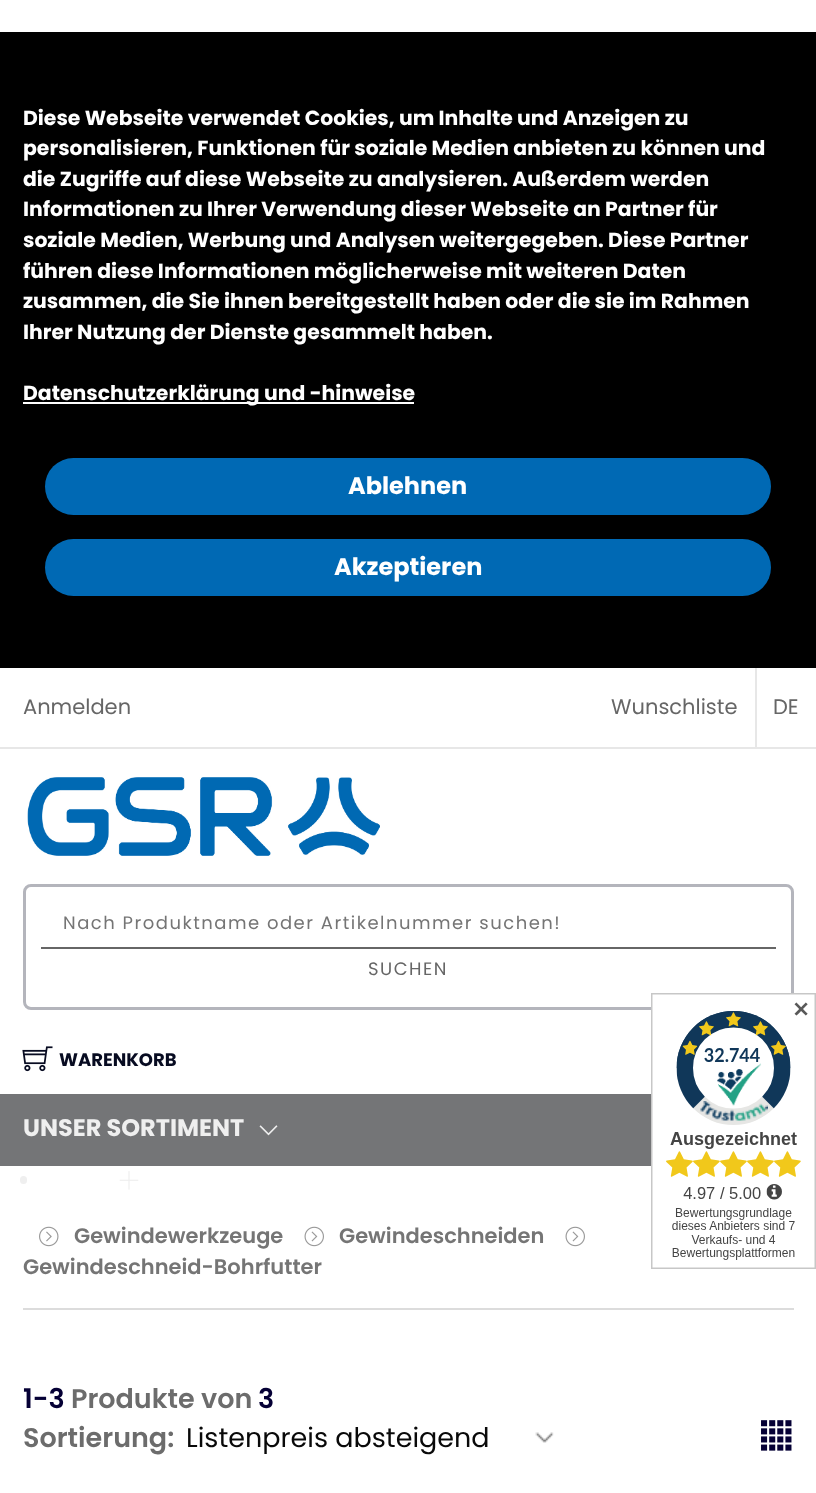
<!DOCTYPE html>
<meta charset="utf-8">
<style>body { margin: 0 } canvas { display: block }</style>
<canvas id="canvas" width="816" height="1493"></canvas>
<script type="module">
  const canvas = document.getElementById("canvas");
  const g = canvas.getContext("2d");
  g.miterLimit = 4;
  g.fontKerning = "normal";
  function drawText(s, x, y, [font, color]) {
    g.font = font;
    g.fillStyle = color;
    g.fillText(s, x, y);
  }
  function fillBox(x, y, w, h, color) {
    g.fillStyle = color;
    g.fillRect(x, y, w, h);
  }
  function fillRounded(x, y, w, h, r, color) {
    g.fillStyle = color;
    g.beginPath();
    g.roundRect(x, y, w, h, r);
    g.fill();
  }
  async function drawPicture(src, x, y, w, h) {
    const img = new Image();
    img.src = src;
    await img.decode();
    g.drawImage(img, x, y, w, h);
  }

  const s1 = ["bold 20.4px Poppins", "#FFFFFF"];
  const s2 = ["bold 24px Poppins", "#FFFFFF"];
  const s3 = ["21px Poppins", "#666666"];
  const s4 = ["18px Poppins", "#757575"];
  const s5 = ["18px Poppins", "#666666"];
  const s6 = ["bold 18px Poppins", "#070B21"];
  const s7 = ["bold 21px DejaVu Sans", "#595959"];
  const s8 = ["bold 24px Poppins", "#EFEFEF"];
  const s9 = ["600 21px Poppins", "#757575"];
  const s10 = ["600 27px Poppins", "#050035"];
  const s11 = ["600 27px Poppins", "#6C6C6C"];
  const s12 = ["27px Poppins", "#090909"];

  fillBox(0, 0, 816, 1493, "#FFFFFF");
  fillBox(0, 32, 816, 636, "#000000");
  drawText("Diese Webseite verwendet Cookies, um Inhalte und Anzeigen zu", 23, 125, s1);
  drawText("personalisieren, Funktionen für soziale Medien anbieten zu können und", 23, 155, s1);
  drawText("die Zugriffe auf diese Webseite zu analysieren. Außerdem werden", 23, 186, s1);
  drawText("Informationen zu Ihrer Verwendung dieser Webseite an Partner für", 23, 216, s1);
  drawText("soziale Medien, Werbung und Analysen weitergegeben. Diese Partner", 23, 247, s1);
  drawText("führen diese Informationen möglicherweise mit weiteren Daten", 23, 278, s1);
  drawText("zusammen, die Sie ihnen bereitgestellt haben oder die sie im Rahmen", 23, 308, s1);
  drawText("Ihrer Nutzung der Dienste gesammelt haben.", 23, 339, s1);
  fillBox(23, 402, 391, 2, "#FFFFFF");
  drawText("Datenschutzerklärung und -hinweise", 23, 400, s1);
  fillRounded(45, 458, 726, 57, 28.5, "#0069B4");
  drawText("Ablehnen", 348, 494, s2);
  fillRounded(45, 539, 726, 57, 28.5, "#0069B4");
  drawText("Akzeptieren", 334, 575, s2);
  fillBox(0, 747, 816, 2, "#E7E7E7");
  drawText("Anmelden", 23, 714, s3);
  fillBox(755, 668, 2, 79, "#E7E7E7");
  drawText("Wunschliste", 611, 714, s3);
  drawText("DE", 773, 714, s3);
  await drawPicture("pic1.png", 27, 777, 353, 79);
  g.beginPath();
  g.roundRect(24.5, 885.5, 768, 123, 6.5);
  g.strokeStyle = "#B4B5BC";
  g.lineWidth = 3;
  g.stroke();
  g.letterSpacing = "1.5px";
  drawText("Nach Produktname oder Artikelnummer suchen!", 63, 929, s4);
  fillBox(41, 947, 735, 2, "#666666");
  drawText("SUCHEN", 368, 975, s5);
  await drawPicture("pic2.png", 22, 1046, 31, 26);
  g.letterSpacing = "0px";
  drawText("WARENKORB", 59, 1066, s6);
  await drawPicture("pic3.png", 651, 993, 165, 276);
  drawText("✕", 792, 1017, s7);
  fillBox(0, 1094, 651, 72, "#747577");
  drawText("UNSER SORTIMENT", 23, 1136, s8);
  await drawPicture("pic4.png", 259, 1125, 19, 11);
  fillRounded(20, 1176, 7, 8, 3.5, "#EFEFEF");
  await drawPicture("pic5.png", 119, 1171, 20, 19);
  fillBox(23, 1308, 771, 2, "#DCDCDC");
  await drawPicture("pic6.png", 39, 1226, 20, 21);
  drawText("Gewindewerkzeuge", 74, 1243, s9);
  await drawPicture("pic7.png", 304, 1226, 20, 21);
  drawText("Gewindeschneiden", 339, 1243, s9);
  await drawPicture("pic7.png", 565, 1226, 20, 21);
  drawText("Gewindeschneid-Bohrfutter", 23, 1274, s9);
  drawText("1-3", 23, 1408, s10);
  drawText("Produkte von", 71, 1408, s11);
  drawText("3", 258, 1408, s10);
  drawText("Sortierung:", 23, 1447, s11);
  await drawPicture("pic8.png", 535, 1432, 19, 11);
  drawText("Listenpreis absteigend", 186, 1447, s12);
  await drawPicture("pic9.png", 761, 1420, 31, 31);
</script>
